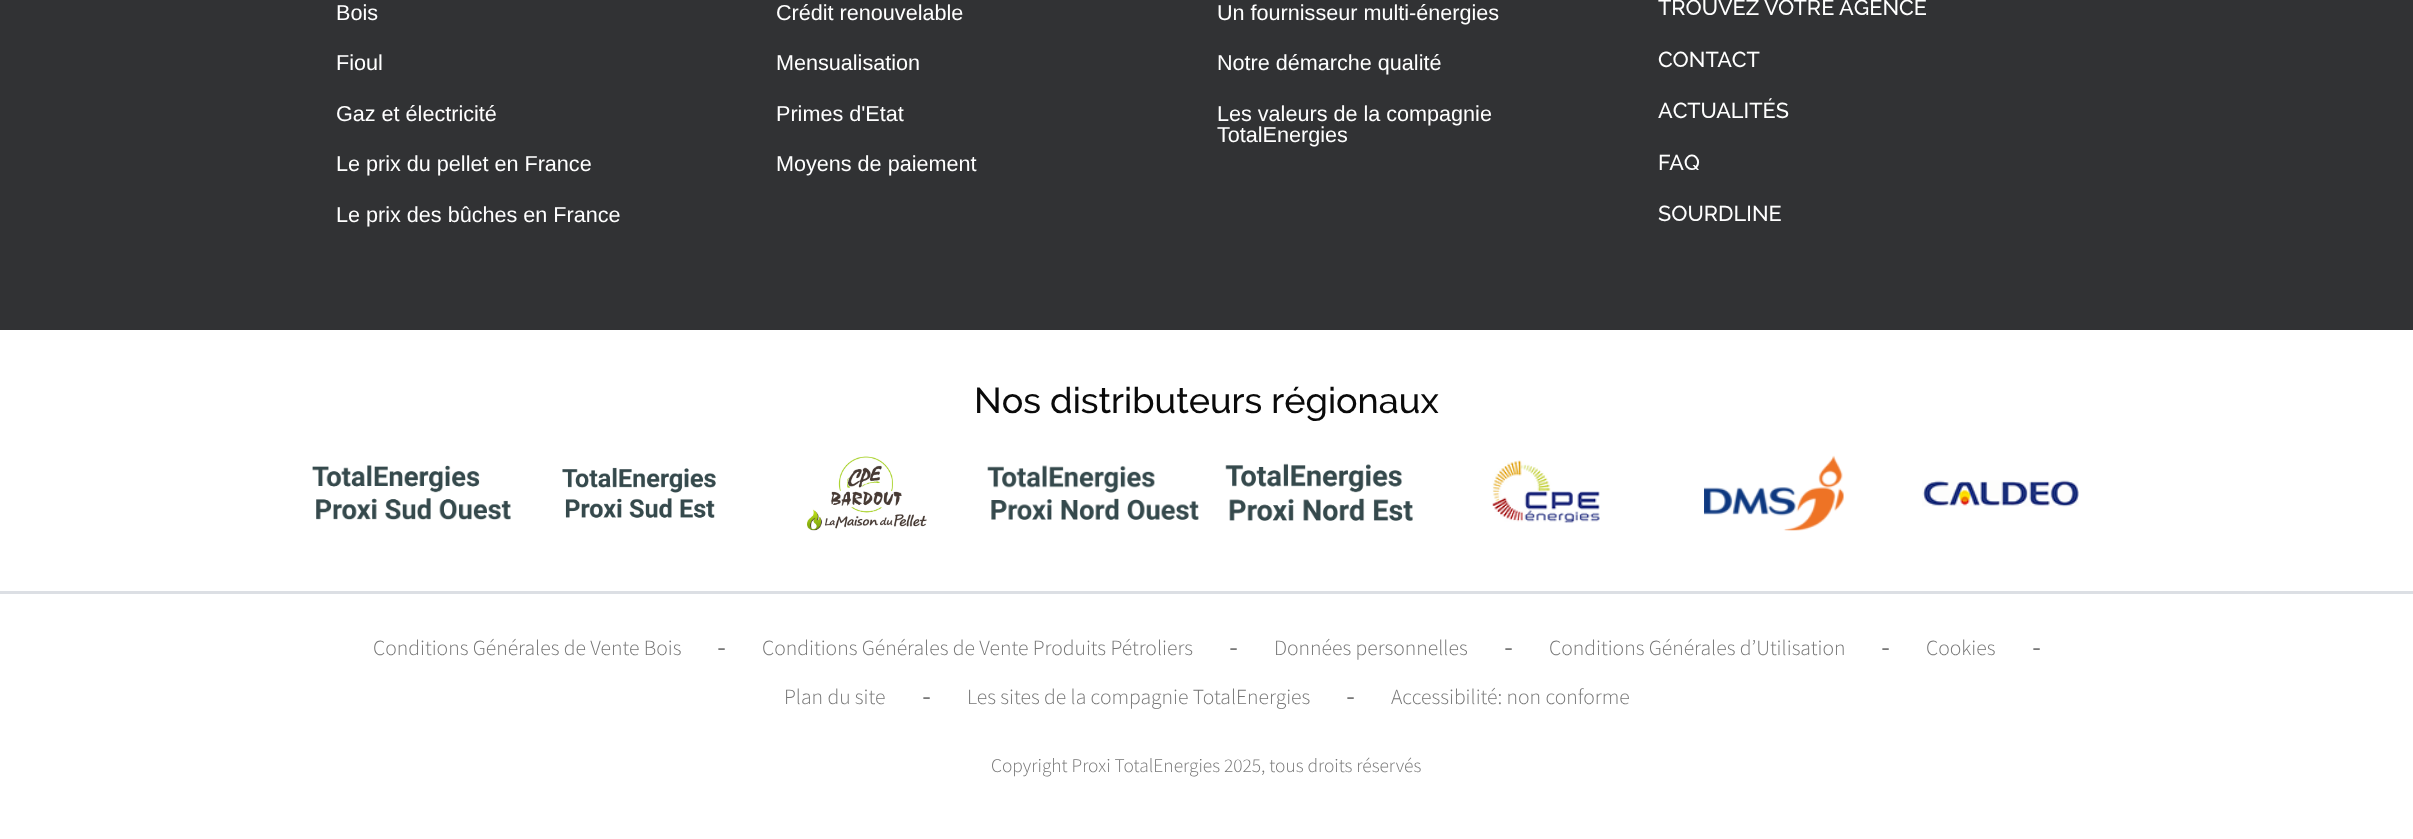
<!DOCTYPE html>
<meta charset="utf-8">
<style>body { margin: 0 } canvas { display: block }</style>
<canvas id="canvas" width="2413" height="839"></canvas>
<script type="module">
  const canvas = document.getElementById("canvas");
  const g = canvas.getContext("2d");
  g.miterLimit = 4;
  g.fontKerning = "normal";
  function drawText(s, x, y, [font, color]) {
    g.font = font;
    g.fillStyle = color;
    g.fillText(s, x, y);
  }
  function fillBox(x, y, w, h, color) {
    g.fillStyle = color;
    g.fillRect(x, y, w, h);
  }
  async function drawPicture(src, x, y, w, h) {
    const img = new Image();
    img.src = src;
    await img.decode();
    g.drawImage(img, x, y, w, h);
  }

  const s1 = ["21.6px Liberation Sans", "#FFFFFF"];
  const s2 = ["500 21.6px Raleway", "#FFFFFF"];
  const s3 = ["500 36px Raleway", "#0A0A0A"];
  const s4 = ["300 21.6px Source Sans Pro", "#767676"];
  const s5 = ["500 21.6px Raleway", "#767676"];
  const s6 = ["300 19.4px Source Sans Pro", "#767676"];

  fillBox(0, 0, 2413, 839, "#FFFFFF");
  fillBox(0, 0, 2413, 330, "#313234");
  drawText("Bois", 336, 20, s1);
  drawText("Fioul", 336, 70, s1);
  drawText("Gaz et électricité", 336, 121, s1);
  drawText("Le prix du pellet en France", 336, 171, s1);
  drawText("Le prix des bûches en France", 336, 222, s1);
  drawText("Crédit renouvelable", 776, 20, s1);
  drawText("Mensualisation", 776, 70, s1);
  drawText("Primes d'Etat", 776, 121, s1);
  drawText("Moyens de paiement", 776, 171, s1);
  drawText("Un fournisseur multi-énergies", 1217, 20, s1);
  drawText("Notre démarche qualité", 1217, 70, s1);
  drawText("Les valeurs de la compagnie", 1217, 121, s1);
  drawText("TotalEnergies", 1217, 142, s1);
  drawText("TROUVEZ VOTRE AGENCE", 1658, 15, s2);
  drawText("CONTACT", 1658, 67, s2);
  drawText("ACTUALITÉS", 1658, 118, s2);
  drawText("FAQ", 1658, 170, s2);
  drawText("SOURDLINE", 1658, 221, s2);
  drawText("Nos distributeurs régionaux", 974, 413, s3);
  await drawPicture("pic1.png", 312, 465, 199, 55);
  await drawPicture("pic2.png", 562, 467, 154, 51);
  await drawPicture("pic3.png", 807, 456, 120, 75);
  await drawPicture("pic4.png", 987, 465, 212, 55);
  await drawPicture("pic5.png", 1225, 463, 188, 58);
  await drawPicture("pic6.png", 1492, 460, 108, 63);
  await drawPicture("pic7.png", 1704, 455, 140, 76);
  await drawPicture("pic8.png", 1922, 480, 157, 27);
  fillBox(0, 591, 2413, 3, "#DCDFE4");
  drawText("Conditions Générales de Vente Bois", 373, 655, s4);
  drawText("-", 717, 655, s5);
  drawText("Conditions Générales de Vente Produits Pétroliers", 762, 655, s4);
  drawText("-", 1229, 655, s5);
  drawText("Données personnelles", 1274, 655, s4);
  drawText("-", 1504, 655, s5);
  drawText("Conditions Générales d’Utilisation", 1549, 655, s4);
  drawText("-", 1881, 655, s5);
  drawText("Cookies", 1926, 655, s4);
  drawText("-", 2032, 655, s5);
  drawText("Plan du site", 784, 704, s4);
  drawText("-", 922, 704, s5);
  drawText("Les sites de la compagnie TotalEnergies", 967, 704, s4);
  drawText("-", 1346, 704, s5);
  drawText("Accessibilité: non conforme", 1391, 704, s4);
  drawText("Copyright Proxi TotalEnergies 2025, tous droits réservés", 991, 772, s6);
</script>
